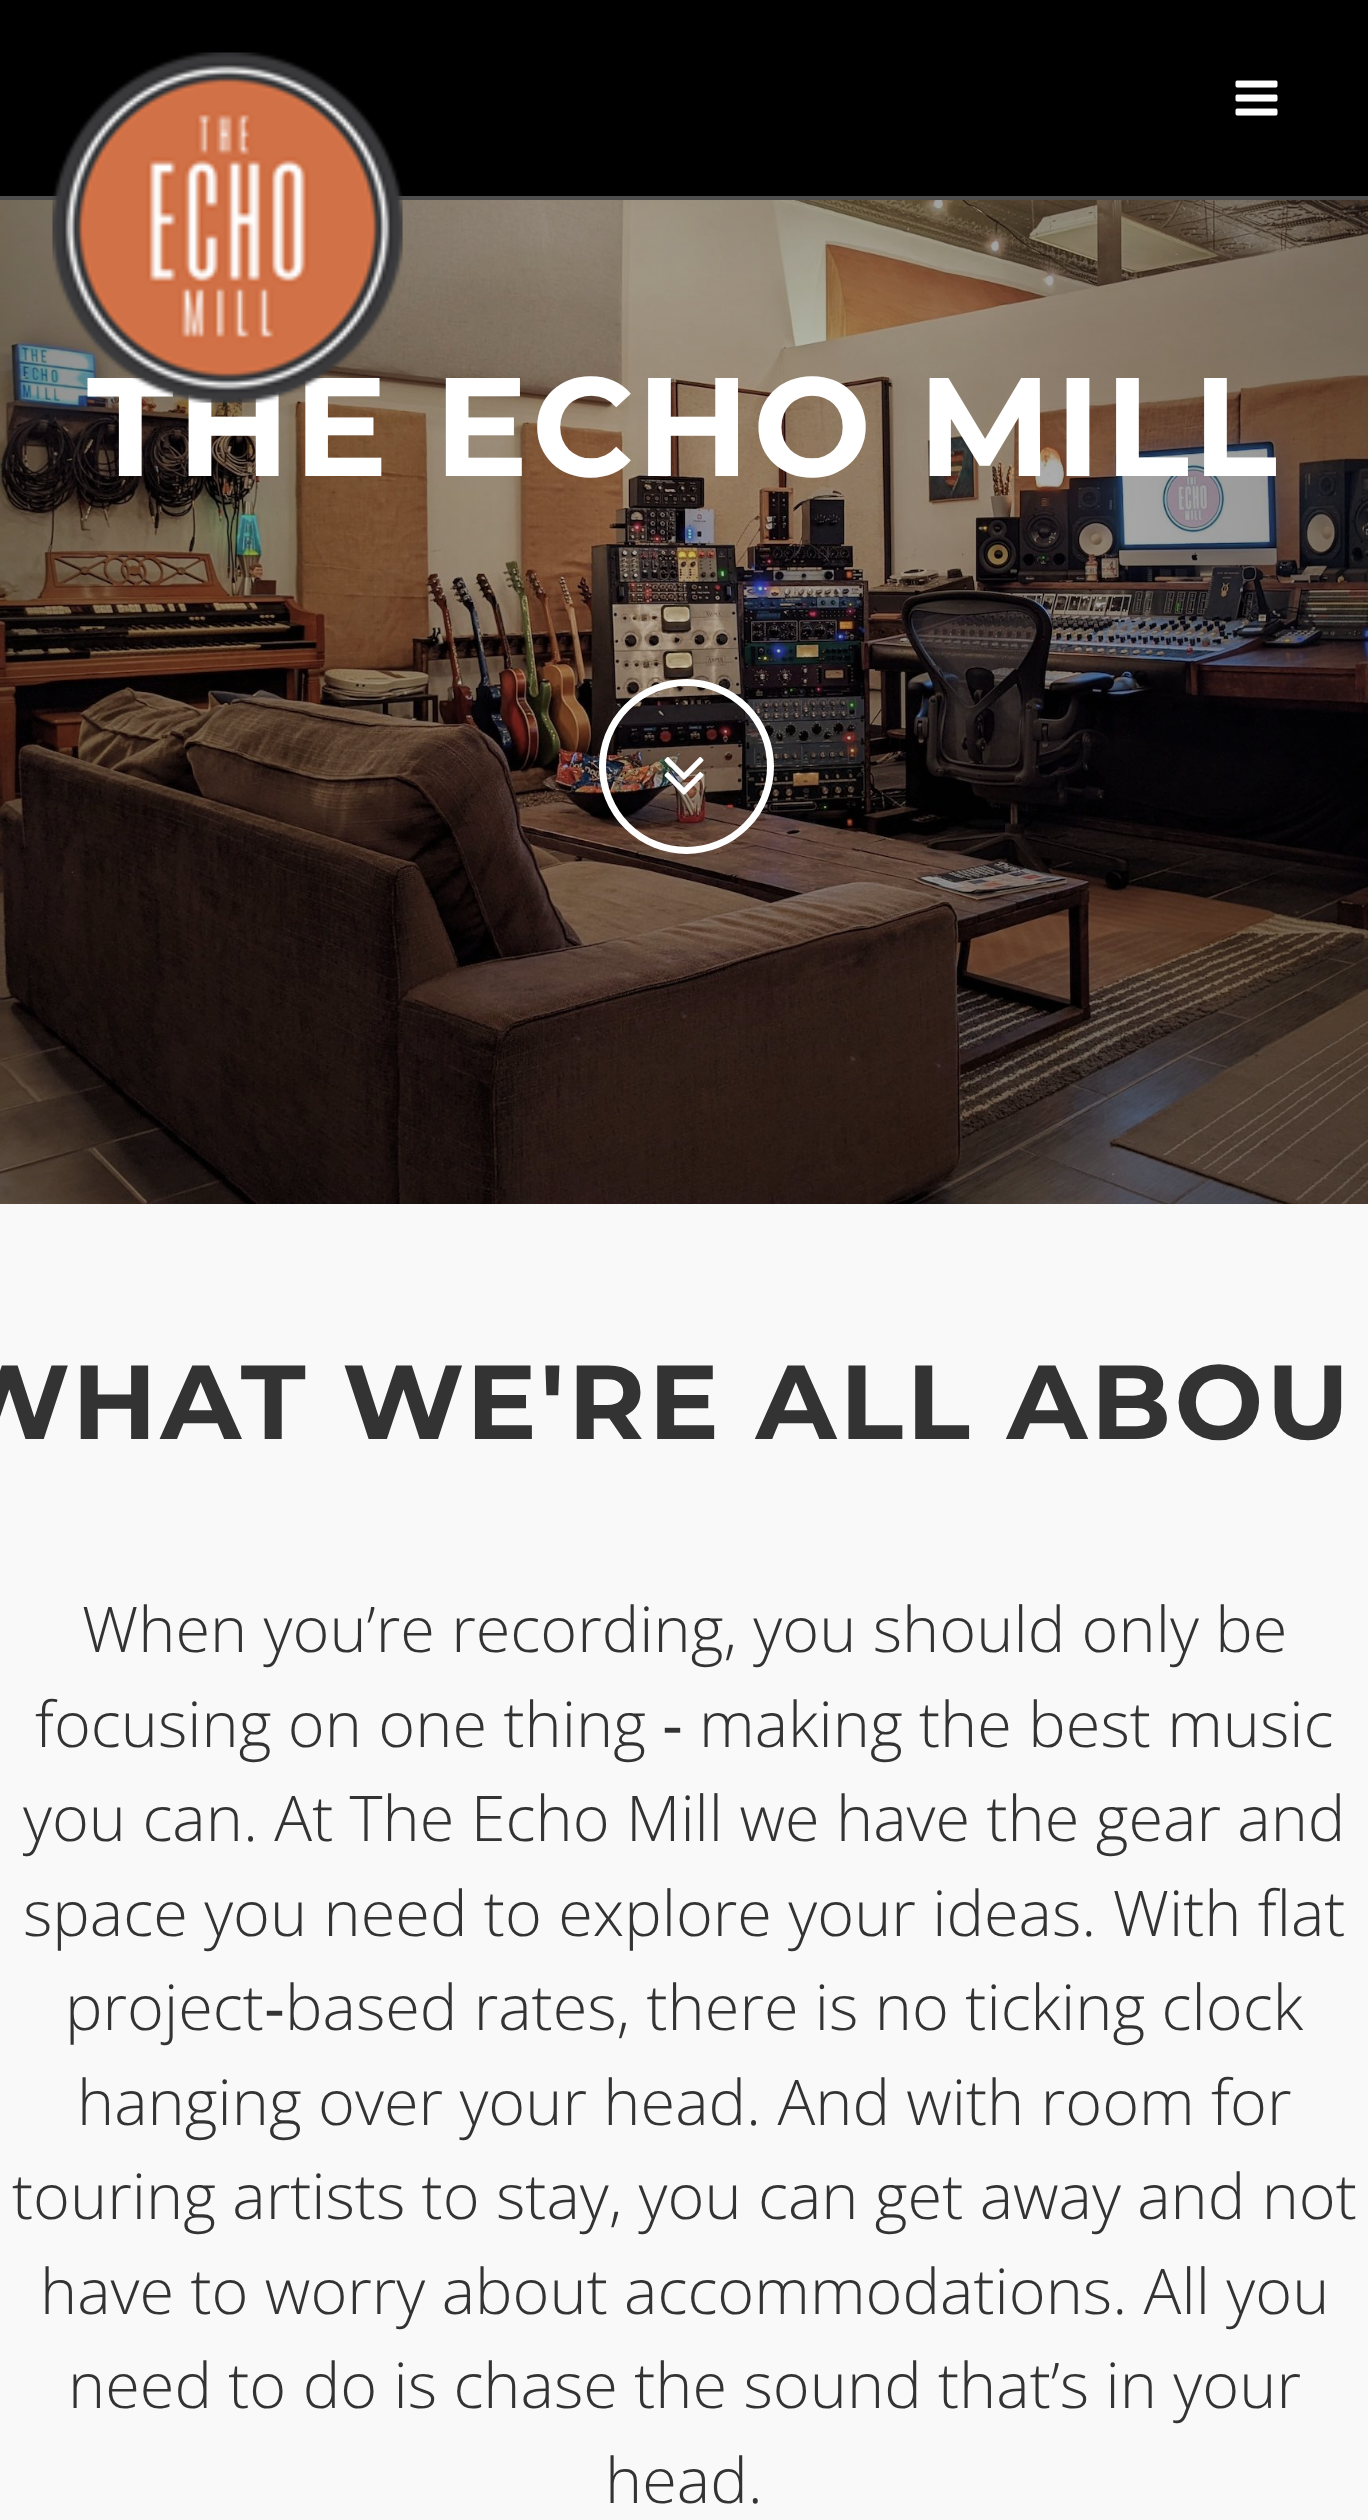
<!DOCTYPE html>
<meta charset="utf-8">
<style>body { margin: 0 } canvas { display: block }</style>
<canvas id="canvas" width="1368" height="2520"></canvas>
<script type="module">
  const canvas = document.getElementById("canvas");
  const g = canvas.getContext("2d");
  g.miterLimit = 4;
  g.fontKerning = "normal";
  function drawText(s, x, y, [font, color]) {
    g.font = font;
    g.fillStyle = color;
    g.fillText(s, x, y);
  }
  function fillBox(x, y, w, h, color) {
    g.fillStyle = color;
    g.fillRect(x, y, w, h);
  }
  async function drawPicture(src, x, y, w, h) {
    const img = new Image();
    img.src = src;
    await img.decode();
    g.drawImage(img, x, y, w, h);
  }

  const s1 = ["bold 140px Montserrat", "#FFFFFF"];
  const s2 = ["bold 105px Montserrat", "#333333"];
  const s3 = ["300 63px Open Sans", "#333333"];
  const s4 = ["63px Liberation Sans", "#333333"];

  fillBox(0, 0, 1368, 2520, "#FFFFFF");
  fillBox(0, 0, 1368, 196, "#000000");
  fillBox(0, 196, 1368, 4, "#4D4D4D");
  await drawPicture("pic3.png", 0, 200, 1368, 1004);
  g.letterSpacing = "3.5px";
  drawText("THE ECHO MILL", 87, 476, s1);
  await drawPicture("pic1.png", 52, 52, 351, 351);
  await drawPicture("pic2.png", 1235, 80, 43, 36);
  g.beginPath();
  g.arc(686.5, 766.5, 84, 0, Math.PI * 2);
  g.strokeStyle = "#FFFFFF";
  g.lineWidth = 7;
  g.stroke();
  await drawPicture("pic4.png", 664, 757, 40, 38);
  fillBox(0, 1204, 1368, 1316, "#F9F9F9");
  drawText("WHAT WE'RE ALL ABOU", -52, 1439, s2);
  g.letterSpacing = "0px";
  drawText("When you’re recording, you should only be", 82, 1652, s3);
  drawText("focusing on one thing", 35, 1747, s3);
  drawText("‐", 662, 1747, s4);
  drawText("making the best music", 699, 1747, s3);
  drawText("you can. At The Echo Mill we have the gear and", 23, 1841, s3);
  drawText("space you need to explore your ideas. With flat", 23, 1936, s3);
  drawText("project", 65, 2030, s3);
  drawText("‐", 264, 2030, s4);
  drawText("based rates, there is no ticking clock", 285, 2030, s3);
  drawText("hanging over your head. And with room for", 77, 2125, s3);
  drawText("touring artists to stay, you can get away and not", 12, 2219, s3);
  drawText("have to worry about accommodations. All you", 40, 2314, s3);
  drawText("need to do is chase the sound that’s in your", 68, 2408, s3);
  drawText("head.", 605, 2503, s3);
</script>
